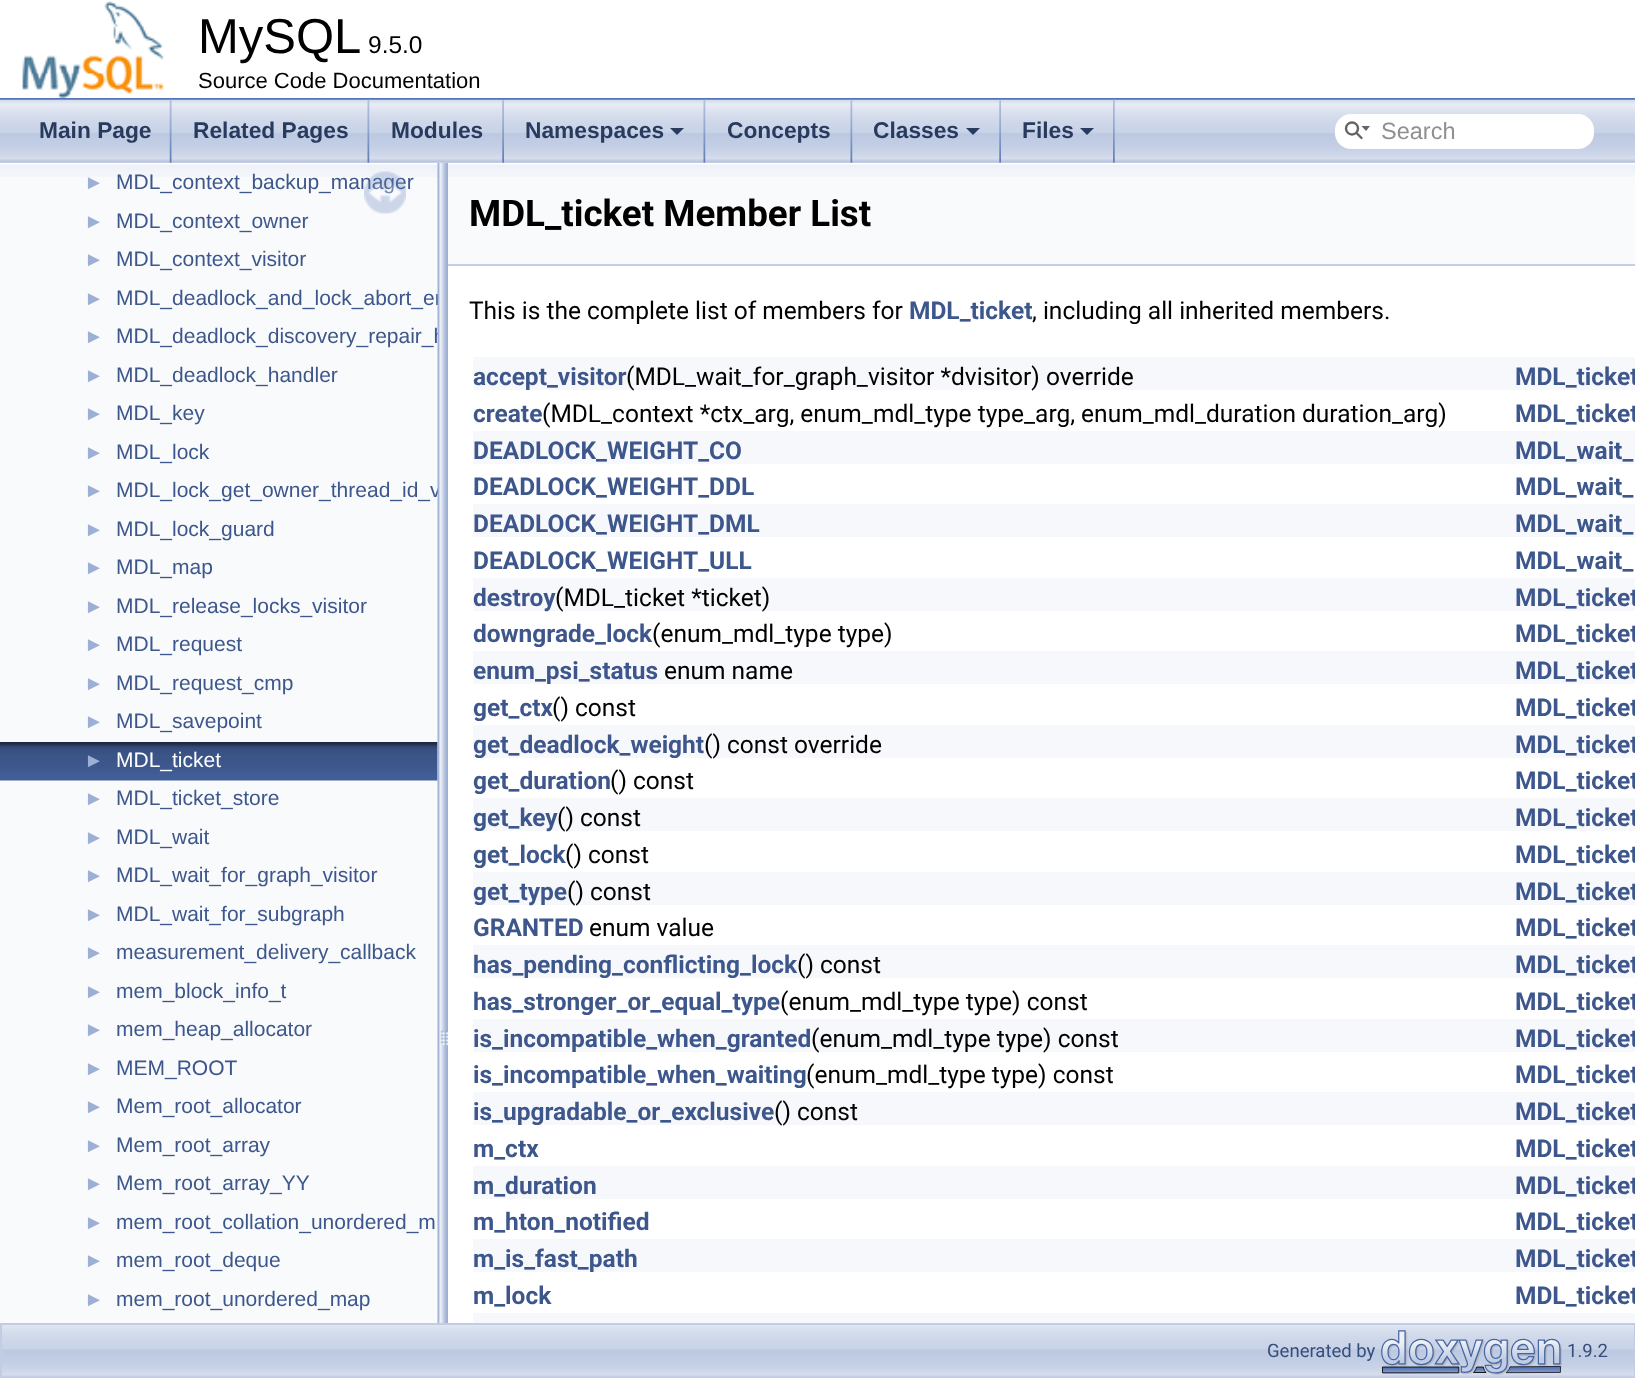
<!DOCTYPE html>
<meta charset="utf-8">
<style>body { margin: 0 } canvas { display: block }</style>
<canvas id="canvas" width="1635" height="1378"></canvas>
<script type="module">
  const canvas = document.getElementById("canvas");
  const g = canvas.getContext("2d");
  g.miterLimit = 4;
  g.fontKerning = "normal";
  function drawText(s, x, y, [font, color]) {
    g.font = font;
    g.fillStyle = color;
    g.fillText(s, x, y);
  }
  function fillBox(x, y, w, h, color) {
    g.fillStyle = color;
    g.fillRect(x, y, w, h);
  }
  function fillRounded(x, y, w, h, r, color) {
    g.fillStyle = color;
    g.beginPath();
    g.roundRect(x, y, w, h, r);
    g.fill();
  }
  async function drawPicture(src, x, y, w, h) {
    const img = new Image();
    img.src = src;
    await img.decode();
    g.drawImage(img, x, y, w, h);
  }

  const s1 = ["49px Liberation Sans", "#000000"];
  const s2 = ["24.5px Liberation Sans", "#000000"];
  const s3 = ["22px Liberation Sans", "#000000"];
  const s4 = ["21px Liberation Sans", "#3D578C"];
  const s5 = ["bold 22.75px Liberation Sans", "#283A5D"];
  const s6 = ["23.5px Liberation Sans", "#909090"];
  const s7 = ["20px Liberation Sans", "#9CAFD4"];
  const s8 = ["21px Liberation Sans", "#FFFFFF"];
  const s9 = ["bold 36.75px Roboto", "#000000"];
  const s10 = ["24.5px Roboto", "#000000"];
  const s11 = ["bold 24.5px Roboto", "#3D578C"];
  const s12 = ["18.5px Roboto", "#364D7C"];

  fillBox(0, 0, 1635, 1378, "#FFFFFF");
  fillBox(0, 98, 1635, 2, "#5373B4");
  await drawPicture("pic1.png", 22, 1, 142, 97);
  drawText("MySQL", 198, 53, s1);
  drawText("9.5.0", 368, 53, s2);
  drawText("Source Code Documentation", 198, 88, s3);
  fillBox(0, 163, 438, 1160, "#F9FAFC");
  await drawPicture("pic8.png", 0, 163, 438, 14);
  drawText("MDL_deadlock_and_lock_abort_er", 116, 305, s4);
  drawText("MDL_deadlock_discovery_repair_h", 116, 343, s4);
  drawText("MDL_lock_get_owner_thread_id_v", 116, 497, s4);
  await drawPicture("pic10.png", 0, 742, 438, 39);
  await drawPicture("pic11.png", 437, 162, 11, 1161);
  await drawPicture("pic2.png", 0, 99, 1635, 64);
  await drawPicture("pic3.png", 169, 99, 3, 64);
  drawText("Main Page", 39, 138, s5);
  await drawPicture("pic4.png", 367, 99, 3, 64);
  drawText("Related Pages", 193, 138, s5);
  await drawPicture("pic5.png", 502, 100, 2, 63);
  drawText("Modules", 391, 138, s5);
  await drawPicture("pic4.png", 703, 99, 3, 64);
  drawText("Namespaces", 525, 138, s5);
  g.beginPath();
  g.moveTo(670, 128);
  g.lineTo(684, 128);
  g.lineTo(677, 135);
  g.closePath();
  g.fill();
  await drawPicture("pic4.png", 850, 99, 3, 64);
  drawText("Concepts", 727, 138, s5);
  await drawPicture("pic6.png", 999, 99, 2, 64);
  drawText("Classes", 873, 138, s5);
  g.beginPath();
  g.moveTo(966, 128);
  g.lineTo(980, 128);
  g.lineTo(973, 135);
  g.closePath();
  g.fill();
  await drawPicture("pic7.png", 1113, 99, 2, 64);
  drawText("Files", 1022, 138, s5);
  g.beginPath();
  g.moveTo(1080, 128);
  g.lineTo(1094, 128);
  g.lineTo(1087, 135);
  g.closePath();
  g.fill();
  fillRounded(1335, 114, 259, 35, 16, "#FFFFFF");
  g.beginPath();
  g.arc(1352, 128.5, 6, 0, Math.PI * 2);
  g.strokeStyle = "#656565";
  g.lineWidth = 2.4;
  g.stroke();
  g.fillStyle = "#656565";
  g.beginPath();
  g.moveTo(1361.5, 126);
  g.lineTo(1366, 131);
  g.lineTo(1370, 126);
  g.closePath();
  g.fill();
  g.beginPath();
  g.moveTo(1356.5, 133);
  g.lineTo(1361.5, 138);
  g.lineCap = "round";
  g.stroke();
  drawText("Search", 1381, 139, s6);
  drawText("MDL_context_backup_manager", 116, 189, s4);
  await drawPicture("pic9.png", 364, 171, 42, 43);
  drawText("►", 84, 189, s7);
  drawText("►", 84, 228, s7);
  drawText("MDL_context_owner", 116, 228, s4);
  drawText("►", 84, 266, s7);
  drawText("MDL_context_visitor", 116, 266, s4);
  drawText("►", 84, 305, s7);
  drawText("►", 84, 343, s7);
  drawText("►", 84, 382, s7);
  drawText("MDL_deadlock_handler", 116, 382, s4);
  drawText("►", 84, 420, s7);
  drawText("MDL_key", 116, 420, s4);
  drawText("►", 84, 459, s7);
  drawText("MDL_lock", 116, 459, s4);
  drawText("►", 84, 497, s7);
  drawText("►", 84, 536, s7);
  drawText("MDL_lock_guard", 116, 536, s4);
  drawText("►", 84, 574, s7);
  drawText("MDL_map", 116, 574, s4);
  drawText("►", 84, 613, s7);
  drawText("MDL_release_locks_visitor", 116, 613, s4);
  drawText("►", 84, 651, s7);
  drawText("MDL_request", 116, 651, s4);
  drawText("►", 84, 690, s7);
  drawText("MDL_request_cmp", 116, 690, s4);
  drawText("►", 84, 728, s7);
  drawText("MDL_savepoint", 116, 728, s4);
  drawText("►", 84, 767, s7);
  drawText("MDL_ticket", 116, 767, s8);
  drawText("►", 84, 805, s7);
  drawText("MDL_ticket_store", 116, 805, s4);
  drawText("►", 84, 844, s7);
  drawText("MDL_wait", 116, 844, s4);
  drawText("►", 84, 882, s7);
  drawText("MDL_wait_for_graph_visitor", 116, 882, s4);
  drawText("►", 84, 921, s7);
  drawText("MDL_wait_for_subgraph", 116, 921, s4);
  drawText("►", 84, 959, s7);
  drawText("measurement_delivery_callback", 116, 959, s4);
  drawText("►", 84, 998, s7);
  drawText("mem_block_info_t", 116, 998, s4);
  drawText("►", 84, 1036, s7);
  drawText("mem_heap_allocator", 116, 1036, s4);
  drawText("►", 84, 1075, s7);
  drawText("MEM_ROOT", 116, 1075, s4);
  drawText("►", 84, 1113, s7);
  drawText("Mem_root_allocator", 116, 1113, s4);
  drawText("►", 84, 1152, s7);
  drawText("Mem_root_array", 116, 1152, s4);
  drawText("►", 84, 1190, s7);
  drawText("Mem_root_array_YY", 116, 1190, s4);
  drawText("►", 84, 1229, s7);
  drawText("mem_root_collation_unordered_m", 116, 1229, s4);
  drawText("►", 84, 1267, s7);
  drawText("mem_root_deque", 116, 1267, s4);
  drawText("►", 84, 1306, s7);
  drawText("mem_root_unordered_map", 116, 1306, s4);
  fillBox(448, 177, 1187, 87, "#F9FAFC");
  await drawPicture("pic12.png", 448, 163, 1187, 14);
  fillBox(448, 264, 1187, 2, "#C4CFE5");
  drawText("MDL_ticket Member List", 469, 226, s9);
  drawText("This is the complete list of members for", 469, 319, s10);
  drawText("MDL_ticket", 909, 319, s11);
  drawText(", including all inherited members.", 1032, 319, s10);
  fillBox(473, 357, 1162, 33, "#F7F8FB");
  drawText("accept_visitor", 473, 385, s11);
  drawText("(MDL_wait_for_graph_visitor *dvisitor) override", 626, 385, s10);
  drawText("MDL_ticket", 1515, 385, s11);
  drawText("create", 473, 422, s11);
  drawText("(MDL_context *ctx_arg, enum_mdl_type type_arg, enum_mdl_duration duration_arg)", 542, 422, s10);
  drawText("MDL_ticket", 1515, 422, s11);
  fillBox(473, 431, 1162, 33, "#F7F8FB");
  drawText("DEADLOCK_WEIGHT_CO", 473, 459, s11);
  drawText("MDL_wait_", 1515, 459, s11);
  drawText("DEADLOCK_WEIGHT_DDL", 473, 495, s11);
  drawText("MDL_wait_", 1515, 495, s11);
  fillBox(473, 504, 1162, 33, "#F7F8FB");
  drawText("DEADLOCK_WEIGHT_DML", 473, 532, s11);
  drawText("MDL_wait_", 1515, 532, s11);
  drawText("DEADLOCK_WEIGHT_ULL", 473, 569, s11);
  drawText("MDL_wait_", 1515, 569, s11);
  fillBox(473, 578, 1162, 33, "#F7F8FB");
  drawText("destroy", 473, 606, s11);
  drawText("(MDL_ticket *ticket)", 555, 606, s10);
  drawText("MDL_ticket", 1515, 606, s11);
  drawText("downgrade_lock", 473, 642, s11);
  drawText("(enum_mdl_type type)", 652, 642, s10);
  drawText("MDL_ticket", 1515, 642, s11);
  fillBox(473, 651, 1162, 33, "#F7F8FB");
  drawText("enum_psi_status", 473, 679, s11);
  drawText("enum name", 664, 679, s10);
  drawText("MDL_ticket", 1515, 679, s11);
  drawText("get_ctx", 473, 716, s11);
  drawText("() const", 552, 716, s10);
  drawText("MDL_ticket", 1515, 716, s11);
  fillBox(473, 725, 1162, 33, "#F7F8FB");
  drawText("get_deadlock_weight", 473, 753, s11);
  drawText("() const override", 704, 753, s10);
  drawText("MDL_ticket", 1515, 753, s11);
  drawText("get_duration", 473, 789, s11);
  drawText("() const", 610, 789, s10);
  drawText("MDL_ticket", 1515, 789, s11);
  fillBox(473, 798, 1162, 33, "#F7F8FB");
  drawText("get_key", 473, 826, s11);
  drawText("() const", 557, 826, s10);
  drawText("MDL_ticket", 1515, 826, s11);
  drawText("get_lock", 473, 863, s11);
  drawText("() const", 565, 863, s10);
  drawText("MDL_ticket", 1515, 863, s11);
  fillBox(473, 872, 1162, 33, "#F7F8FB");
  drawText("get_type", 473, 900, s11);
  drawText("() const", 567, 900, s10);
  drawText("MDL_ticket", 1515, 900, s11);
  drawText("GRANTED", 473, 936, s11);
  drawText("enum value", 589, 936, s10);
  drawText("MDL_ticket", 1515, 936, s11);
  fillBox(473, 945, 1162, 33, "#F7F8FB");
  drawText("has_pending_conflicting_lock", 473, 973, s11);
  drawText("() const", 797, 973, s10);
  drawText("MDL_ticket", 1515, 973, s11);
  drawText("has_stronger_or_equal_type", 473, 1010, s11);
  drawText("(enum_mdl_type type) const", 780, 1010, s10);
  drawText("MDL_ticket", 1515, 1010, s11);
  fillBox(473, 1019, 1162, 33, "#F7F8FB");
  drawText("is_incompatible_when_granted", 473, 1047, s11);
  drawText("(enum_mdl_type type) const", 811, 1047, s10);
  drawText("MDL_ticket", 1515, 1047, s11);
  drawText("is_incompatible_when_waiting", 473, 1083, s11);
  drawText("(enum_mdl_type type) const", 806, 1083, s10);
  drawText("MDL_ticket", 1515, 1083, s11);
  fillBox(473, 1092, 1162, 33, "#F7F8FB");
  drawText("is_upgradable_or_exclusive", 473, 1120, s11);
  drawText("() const", 774, 1120, s10);
  drawText("MDL_ticket", 1515, 1120, s11);
  drawText("m_ctx", 473, 1157, s11);
  drawText("MDL_ticket", 1515, 1157, s11);
  fillBox(473, 1166, 1162, 33, "#F7F8FB");
  drawText("m_duration", 473, 1194, s11);
  drawText("MDL_ticket", 1515, 1194, s11);
  drawText("m_hton_notified", 473, 1230, s11);
  drawText("MDL_ticket", 1515, 1230, s11);
  fillBox(473, 1239, 1162, 33, "#F7F8FB");
  drawText("m_is_fast_path", 473, 1267, s11);
  drawText("MDL_ticket", 1515, 1267, s11);
  drawText("m_lock", 473, 1304, s11);
  drawText("MDL_ticket", 1515, 1304, s11);
  fillBox(473, 1313, 1162, 10, "#F7F8FB");
  await drawPicture("pic13.png", 2, 1325, 1632, 52);
  g.strokeStyle = "#C2CDE4";
  g.lineWidth = 2;
  g.strokeRect(1, 1324, 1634, 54);
  drawText("Generated by", 1267, 1357, s12);
  await drawPicture("pic14.png", 1381, 1330, 181, 46);
  drawText("1.9.2", 1567, 1357, s12);
</script>
